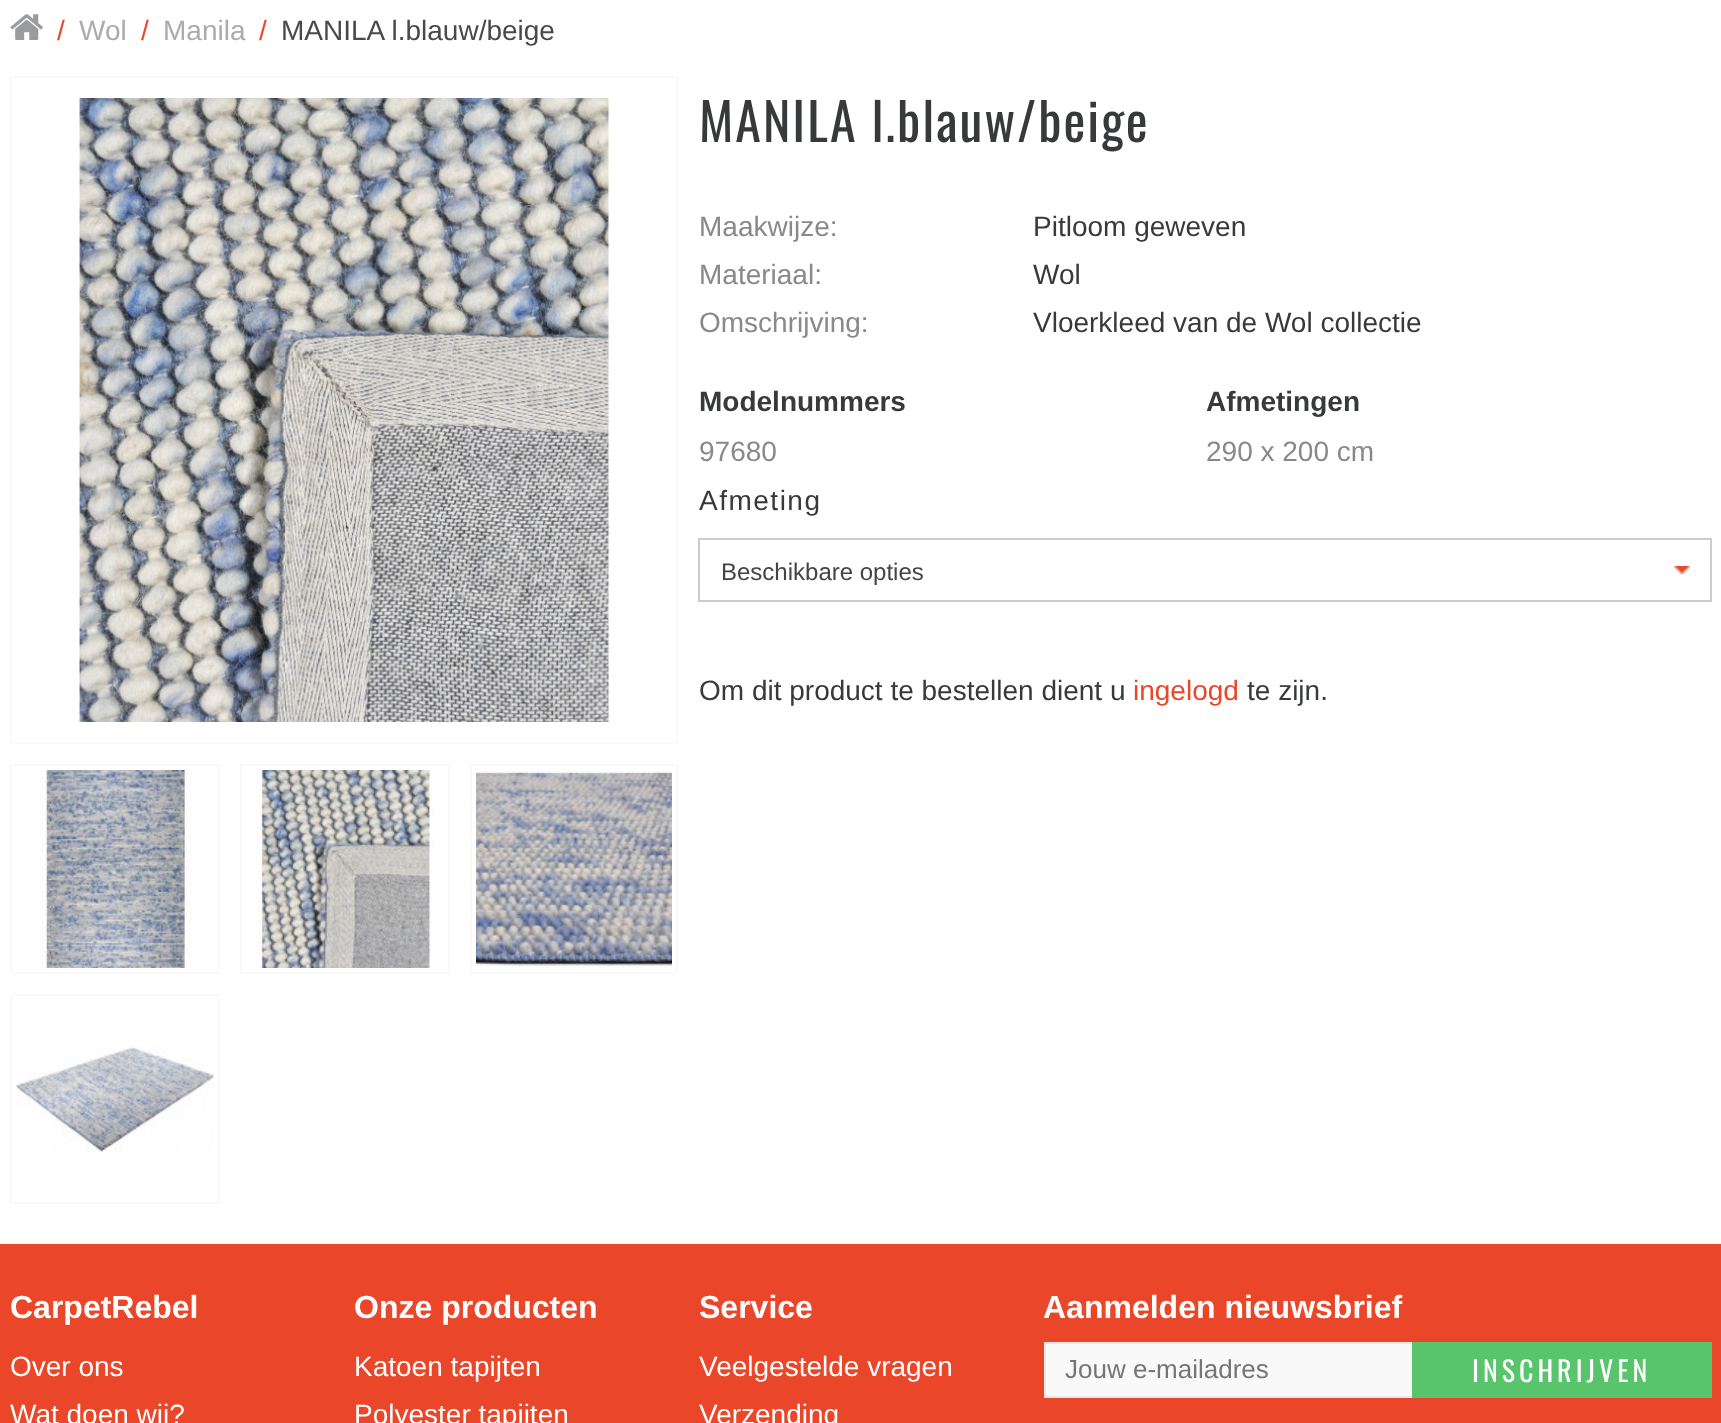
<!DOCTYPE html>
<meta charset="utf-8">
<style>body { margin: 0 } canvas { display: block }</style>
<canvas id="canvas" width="1721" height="1423"></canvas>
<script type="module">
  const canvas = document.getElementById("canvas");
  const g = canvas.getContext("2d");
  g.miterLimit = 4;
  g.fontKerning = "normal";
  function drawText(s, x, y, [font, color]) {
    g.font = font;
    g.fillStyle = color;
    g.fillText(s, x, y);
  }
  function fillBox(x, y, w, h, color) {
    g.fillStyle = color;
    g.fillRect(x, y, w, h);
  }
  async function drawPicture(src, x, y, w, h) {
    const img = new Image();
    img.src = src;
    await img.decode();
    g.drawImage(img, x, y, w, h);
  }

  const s1 = ["28px Liberation Sans", "#EA472A"];
  const s2 = ["28px Liberation Sans", "#AAABAD"];
  const s3 = ["28px Liberation Sans", "#48494C"];
  const s4 = ["52px Oswald", "#38393B"];
  const s5 = ["28px Liberation Sans", "#88898B"];
  const s6 = ["28px Liberation Sans", "#38393B"];
  const s7 = ["bold 28px Liberation Sans", "#38393B"];
  const s8 = ["24px Liberation Sans", "#444444"];
  const s9 = ["bold 32px Liberation Sans", "#FFFFFF"];
  const s10 = ["28px Liberation Sans", "#FFFFFF"];
  const s11 = ["26px Liberation Sans", "#757575"];
  const s12 = ["28px Oswald", "#FFFFFF"];

  fillBox(0, 0, 1721, 1423, "#FFFFFF");
  await drawPicture("pic1.png", 10, 14, 33, 26);
  drawText("/", 57, 40, s1);
  drawText("Wol", 79, 40, s2);
  drawText("/", 141, 40, s1);
  drawText("Manila", 163, 40, s2);
  drawText("/", 259, 40, s1);
  drawText("MANILA l.blauw/beige", 281, 40, s3);
  g.strokeStyle = "#F9F9F9";
  g.lineWidth = 2;
  g.strokeRect(11, 77, 666, 666);
  await drawPicture("pic2.png", 79, 98, 531, 624);
  g.strokeRect(11, 765, 208, 208);
  await drawPicture("pic3.png", 39, 770, 153, 198);
  g.strokeRect(241, 765, 208, 208);
  await drawPicture("pic4.png", 258, 770, 176, 198);
  g.strokeRect(471, 765, 206, 208);
  await drawPicture("pic5.png", 476, 770, 196, 198);
  g.strokeRect(11, 995, 208, 208);
  await drawPicture("pic6.png", 16, 1047, 198, 105);
  g.letterSpacing = "2px";
  drawText("MANILA l.blauw/beige", 699, 142, s4);
  g.letterSpacing = "0px";
  drawText("Maakwijze:", 699, 236, s5);
  drawText("Pitloom geweven", 1033, 236, s6);
  drawText("Materiaal:", 699, 284, s5);
  drawText("Wol", 1033, 284, s6);
  drawText("Omschrijving:", 699, 332, s5);
  drawText("Vloerkleed van de Wol collectie", 1033, 332, s6);
  drawText("Modelnummers", 699, 411, s7);
  drawText("Afmetingen", 1206, 411, s7);
  drawText("97680", 699, 461, s5);
  drawText("290 x 200 cm", 1206, 461, s5);
  g.letterSpacing = "1.5px";
  drawText("Afmeting", 699, 510, s6);
  await drawPicture("pic7.png", 1674, 566, 16, 8);
  g.strokeStyle = "#CCCCCC";
  g.strokeRect(699, 539, 1012, 62);
  g.letterSpacing = "0px";
  drawText("Beschikbare opties", 721, 580, s8);
  drawText("Om dit product te bestellen dient u", 699, 700, s6);
  drawText("ingelogd", 1133, 700, s1);
  drawText("te zijn.", 1247, 700, s6);
  fillBox(0, 1244, 1721, 179, "#EA472A");
  drawText("CarpetRebel", 10, 1318, s9);
  drawText("Over ons", 10, 1376, s10);
  drawText("Wat doen wij?", 10, 1424, s10);
  drawText("Onze producten", 354, 1318, s9);
  drawText("Katoen tapijten", 354, 1376, s10);
  drawText("Polyester tapijten", 354, 1424, s10);
  drawText("Service", 699, 1318, s9);
  drawText("Veelgestelde vragen", 699, 1376, s10);
  drawText("Verzending", 699, 1424, s10);
  drawText("Aanmelden nieuwsbrief", 1043, 1318, s9);
  fillBox(1046, 1344, 366, 52, "#F9F9F9");
  fillBox(1044, 1342, 368, 2, "#E8E8E8");
  fillBox(1044, 1396, 368, 2, "#E8E8E8");
  fillBox(1044, 1342, 2, 56, "#E8E8E8");
  drawText("Jouw e-mailadres", 1065, 1378, s11);
  fillBox(1412, 1342, 300, 56, "#58C56D");
  g.letterSpacing = "4px";
  drawText("INSCHRIJVEN", 1472, 1382, s12);
</script>
